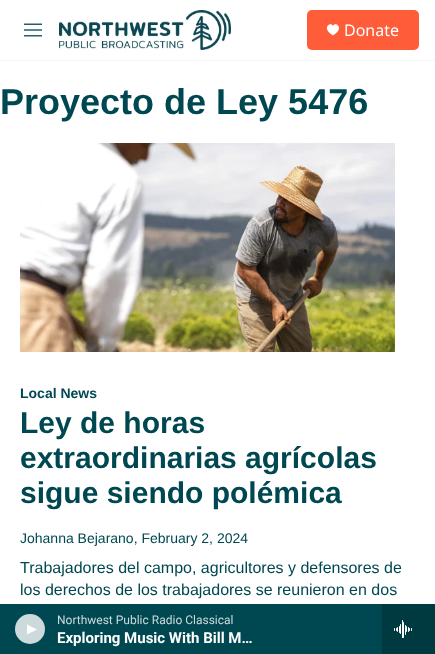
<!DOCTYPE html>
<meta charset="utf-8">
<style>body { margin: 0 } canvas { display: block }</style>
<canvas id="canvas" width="435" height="654"></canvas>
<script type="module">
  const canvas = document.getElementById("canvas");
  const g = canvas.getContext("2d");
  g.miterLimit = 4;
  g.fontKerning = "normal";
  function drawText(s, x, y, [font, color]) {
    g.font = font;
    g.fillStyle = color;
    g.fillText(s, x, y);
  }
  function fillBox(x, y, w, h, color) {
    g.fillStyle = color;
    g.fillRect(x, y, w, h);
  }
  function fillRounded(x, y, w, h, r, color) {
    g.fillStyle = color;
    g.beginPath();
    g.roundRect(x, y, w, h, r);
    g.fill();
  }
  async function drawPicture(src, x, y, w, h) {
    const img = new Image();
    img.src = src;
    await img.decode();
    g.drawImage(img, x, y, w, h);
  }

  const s1 = ["16px Noto Sans", "#FFFFFF"];
  const s2 = ["12px Roboto", "#CCDADC"];
  const s3 = ["bold 15px Roboto", "#FFFFFF"];
  const s4 = ["bold 36px Liberation Sans", "#004851"];
  const s5 = ["bold 14px Liberation Sans", "#004851"];
  const s6 = ["bold 30px Liberation Sans", "#004851"];
  const s7 = ["14px Liberation Sans", "#004851"];
  const s8 = ["16px Liberation Sans", "#004851"];

  fillBox(0, 0, 435, 654, "#FFFFFF");
  fillBox(0, 60, 435, 1, "#F5F5F5");
  await drawPicture("pic1.png", 24, 23, 18, 14);
  await drawPicture("pic2.png", 59, 10, 172, 40);
  fillRounded(307, 10, 112, 40, 5, "#FF5C39");
  g.fillStyle = "#FFFFFF";
  g.beginPath();
  g.moveTo(333, 26);
  g.bezierCurveTo(331, 21, 320.5, 28, 333, 35.5);
  g.bezierCurveTo(345.5, 28, 335, 21, 333, 26);
  g.closePath();
  g.fill();
  drawText("Donate", 344, 36, s1);
  fillBox(0, 604, 382, 50, "#004851");
  g.fillStyle = "#CCDADC";
  g.beginPath();
  g.arc(30, 629, 15, 0, Math.PI * 2);
  g.fill();
  g.fillStyle = "#FFFFFF";
  g.beginPath();
  g.moveTo(27, 624.5);
  g.lineTo(37, 629.5);
  g.lineTo(27, 634.5);
  g.closePath();
  g.fill();
  drawText("Northwest Public Radio Classical", 57, 624, s2);
  drawText("Exploring Music With Bill M…", 57, 643, s3);
  fillBox(382, 604, 53, 50, "#003A41");
  await drawPicture("pic3.png", 394, 620, 18, 18);
  drawText("Proyecto de Ley 5476", 0, 114, s4);
  await drawPicture("pic4.png", 20, 143, 375, 209);
  drawText("Local News", 20, 398, s5);
  drawText("Ley de horas", 20, 433, s6);
  drawText("extraordinarias agrícolas", 20, 468, s6);
  drawText("sigue siendo polémica", 20, 503, s6);
  drawText("Johanna Bejarano, February 2, 2024", 20, 543, s7);
  drawText("Trabajadores del campo, agricultores y defensores de", 20, 573, s8);
  drawText("los derechos de los trabajadores se reunieron en dos", 20, 595, s8);
</script>
